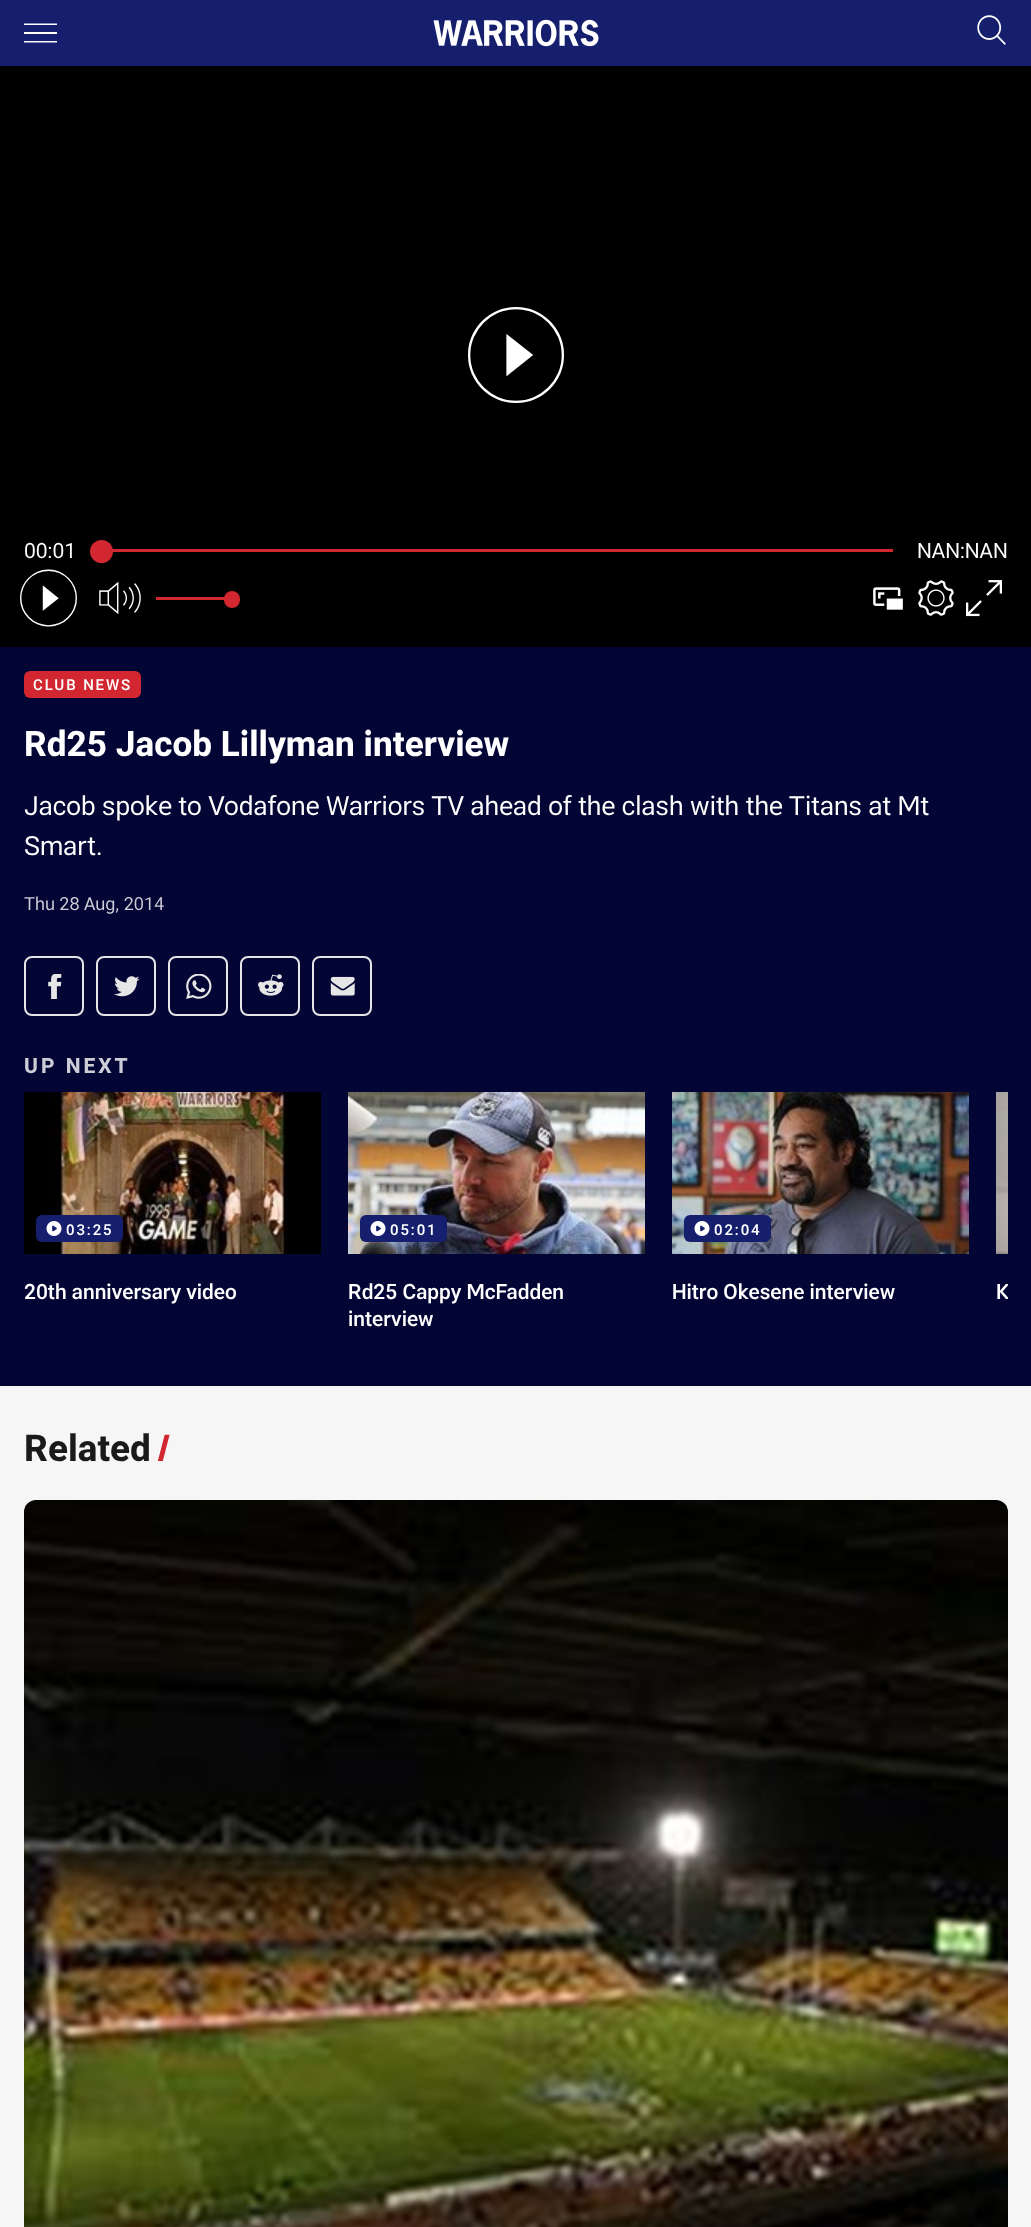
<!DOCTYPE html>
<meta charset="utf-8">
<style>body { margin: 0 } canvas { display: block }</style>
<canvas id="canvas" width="1031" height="2227"></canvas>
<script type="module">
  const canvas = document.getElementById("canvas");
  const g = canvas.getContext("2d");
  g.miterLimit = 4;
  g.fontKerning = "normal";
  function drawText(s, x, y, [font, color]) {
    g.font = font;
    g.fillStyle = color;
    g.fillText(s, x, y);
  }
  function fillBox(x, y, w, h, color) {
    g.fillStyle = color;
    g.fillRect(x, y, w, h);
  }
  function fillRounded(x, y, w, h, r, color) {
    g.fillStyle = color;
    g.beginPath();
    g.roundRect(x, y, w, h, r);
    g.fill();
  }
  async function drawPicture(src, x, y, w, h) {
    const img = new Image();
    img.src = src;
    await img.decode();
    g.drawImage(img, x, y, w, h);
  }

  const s1 = ["96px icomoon", "#FFFFFF"];
  const s2 = ["21px 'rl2'", "#FFFFFF"];
  const s3 = ["57px icomoon", "#FFFFFF"];
  const s4 = ["500 15px 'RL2'", "#FFFFFF"];
  const s5 = ["bold 35.2px 'RL2'", "#FFFFFF"];
  const s6 = ["26.45px 'rl2'", "#FFFFFF"];
  const s7 = ["18px 'rl2'", "#CDCDD7"];
  const s8 = ["bold 21px 'RL2'", "#CDCDD7"];
  const s9 = ["500 21px 'RL2'", "#FFFFFF"];
  const s10 = ["bold 37px 'RL2'", "#1A1A1A"];
  const s11 = ["bold 37px 'RL2'", "#D22630"];

  fillBox(0, 0, 1031, 2227, "#F6F6F6");
  fillBox(0, 0, 1031, 66, "#151F6D");
  g.fillStyle = "#FFFFFF";
  g.beginPath();
  g.moveTo(24, 23.5);
  g.lineTo(57, 23.5);
  g.lineTo(57, 25);
  g.lineTo(24, 25);
  g.closePath();
  g.moveTo(24, 32);
  g.lineTo(57, 32);
  g.lineTo(57, 34);
  g.lineTo(24, 34);
  g.closePath();
  g.moveTo(24, 41);
  g.lineTo(57, 41);
  g.lineTo(57, 42.5);
  g.lineTo(24, 42.5);
  g.closePath();
  g.fill("evenodd");
  await drawPicture("pic1.png", 433, 19, 166, 28);
  await drawPicture("pic2.png", 977, 15, 29, 30);
  fillBox(0, 647, 1031, 739, "#030635");
  fillBox(0, 66, 1031, 581, "#000000");
  drawText(">", 468, 397, s1);
  drawText("00:01", 24, 558, s2);
  fillBox(112, 549, 781, 3, "#D22630");
  g.beginPath();
  g.arc(101.5, 551.5, 11.5, 0, Math.PI * 2);
  g.fill();
  drawText("NAN:NAN", 917, 558, s2);
  drawText(">", 20, 623, s3);
  await drawPicture("pic3.png", 99, 581, 42, 34);
  fillBox(156, 597, 75, 3, "#D22630");
  fillRounded(224, 591, 16, 17, 8, "#D22630");
  await drawPicture("pic4.png", 873, 587, 30, 23);
  await drawPicture("pic5.png", 918, 580, 36, 36);
  await drawPicture("pic6.png", 966, 580, 36, 37);
  fillRounded(24, 671, 117, 27, 6, "#D22630");
  g.letterSpacing = "1.9px";
  drawText("CLUB NEWS", 33, 690, s4);
  g.letterSpacing = "0px";
  drawText("Rd25 Jacob Lillyman interview", 24, 756, s5);
  drawText("Jacob spoke to Vodafone Warriors TV ahead of the clash with the Titans at Mt", 24, 815, s6);
  drawText("Smart.", 24, 855, s6);
  drawText("Thu 28 Aug, 2014", 24, 910, s7);
  g.beginPath();
  g.roundRect(25, 957, 58, 58, 7);
  g.strokeStyle = "#E6E6E6";
  g.lineWidth = 2;
  g.stroke();
  await drawPicture("pic7.png", 48, 974, 14, 25);
  g.beginPath();
  g.roundRect(97, 957, 58, 58, 7);
  g.stroke();
  await drawPicture("pic8.png", 114, 976, 26, 21);
  g.beginPath();
  g.roundRect(169, 957, 58, 58, 7);
  g.stroke();
  await drawPicture("pic9.png", 186, 974, 26, 25);
  g.beginPath();
  g.roundRect(241, 957, 58, 58, 7);
  g.stroke();
  await drawPicture("pic10.png", 258, 974, 26, 22);
  g.beginPath();
  g.roundRect(313, 957, 58, 58, 7);
  g.stroke();
  await drawPicture("pic11.png", 330, 976, 25, 20);
  g.letterSpacing = "3px";
  drawText("UP NEXT", 24, 1073, s8);
  await drawPicture("pic12.png", 24, 1092, 297, 162);
  fillRounded(36, 1215, 87, 27, 6, "#151F6D");
  await drawPicture("pic13.png", 46, 1221, 16, 15);
  g.letterSpacing = "1.9px";
  drawText("03:25", 66, 1235, s4);
  g.letterSpacing = "0px";
  drawText("20th anniversary video", 24, 1299, s9);
  await drawPicture("pic14.png", 348, 1092, 297, 162);
  fillRounded(360, 1215, 87, 27, 6, "#151F6D");
  await drawPicture("pic13.png", 370, 1221, 16, 15);
  g.letterSpacing = "1.9px";
  drawText("05:01", 390, 1235, s4);
  g.letterSpacing = "0px";
  drawText("Rd25 Cappy McFadden", 348, 1299, s9);
  drawText("interview", 348, 1326, s9);
  await drawPicture("pic15.png", 672, 1092, 297, 162);
  fillRounded(684, 1215, 87, 27, 6, "#151F6D");
  await drawPicture("pic13.png", 694, 1221, 16, 15);
  g.letterSpacing = "1.9px";
  drawText("02:04", 714, 1235, s4);
  g.letterSpacing = "0px";
  drawText("Hitro Okesene interview", 672, 1299, s9);
  await drawPicture("pic16.png", 996, 1092, 12, 162);
  g.save();
  g.beginPath();
  g.rect(24, 1092, 984, 270);
  g.clip();
  drawText("K", 996, 1299, s9);
  g.restore();
  drawText("Related", 24, 1461, s10);
  drawText("/", 156, 1461, s11);
  await drawPicture("pic17.png", 24, 1500, 984, 727);
</script>
